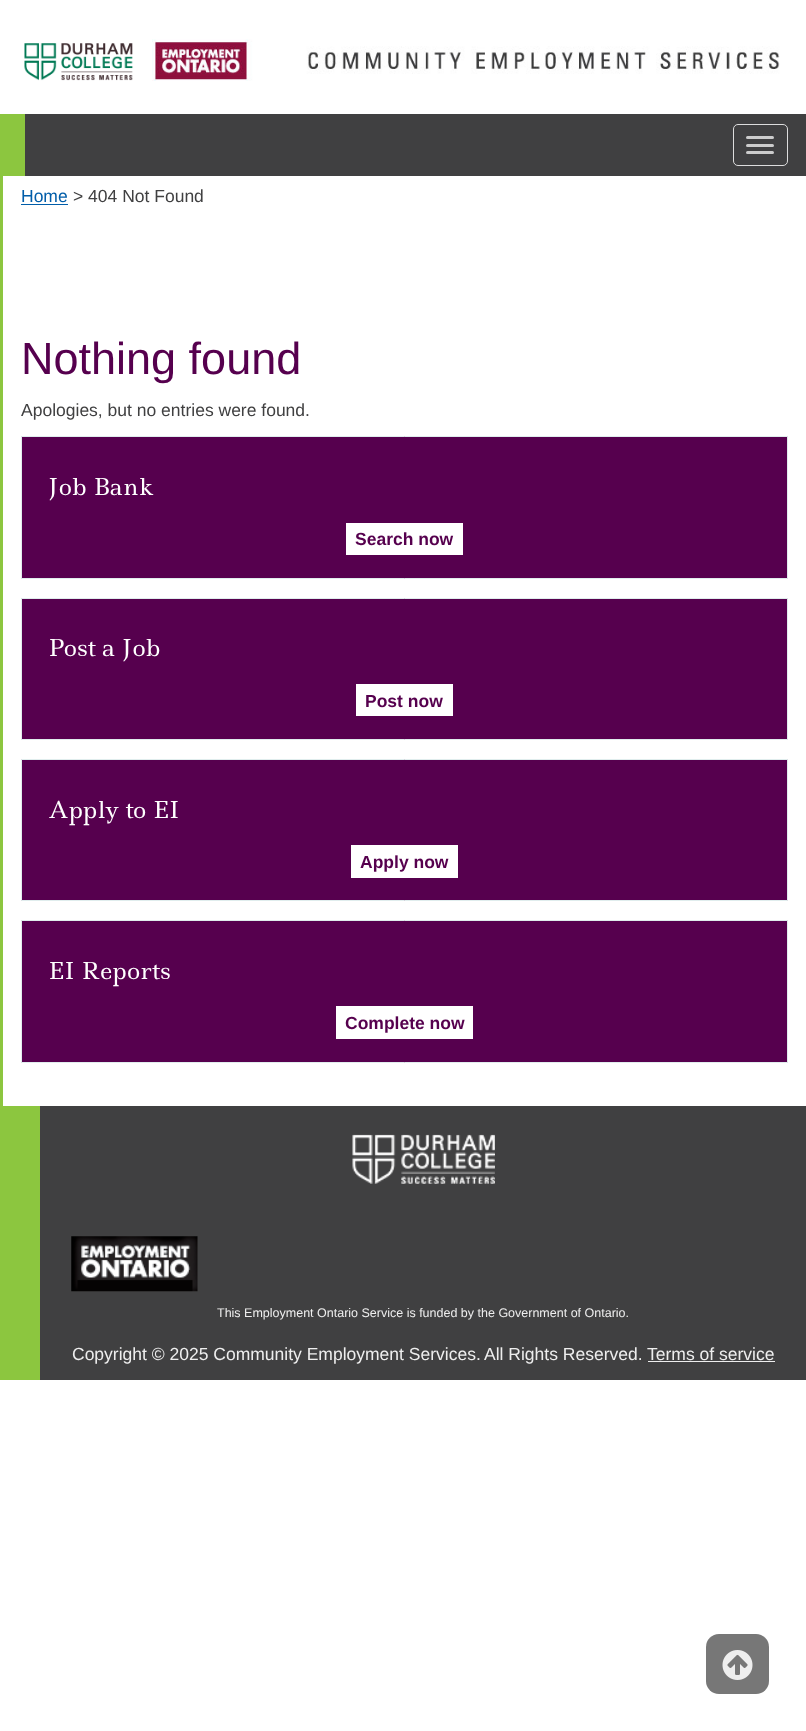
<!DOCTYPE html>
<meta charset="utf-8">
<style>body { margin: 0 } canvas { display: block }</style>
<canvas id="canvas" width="806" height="1731"></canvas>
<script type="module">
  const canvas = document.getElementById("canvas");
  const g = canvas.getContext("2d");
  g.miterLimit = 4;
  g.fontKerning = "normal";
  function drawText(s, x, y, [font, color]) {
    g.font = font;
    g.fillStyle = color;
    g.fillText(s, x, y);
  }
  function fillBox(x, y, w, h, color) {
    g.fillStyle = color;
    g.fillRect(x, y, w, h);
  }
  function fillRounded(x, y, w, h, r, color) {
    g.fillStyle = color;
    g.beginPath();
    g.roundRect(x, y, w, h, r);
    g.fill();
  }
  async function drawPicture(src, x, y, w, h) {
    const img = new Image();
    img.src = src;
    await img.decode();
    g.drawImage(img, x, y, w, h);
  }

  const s1 = ["17.5px Liberation Sans", "#005DA9"];
  const s2 = ["17.5px Liberation Sans", "#404041"];
  const s3 = ["45px Liberation Sans", "#56004E"];
  const s4 = ["22.75px Ledger", "#FFFFFF"];
  const s5 = ["bold 17.5px Liberation Sans", "#56004E"];
  const s6 = ["12.5px Liberation Sans", "#EEEEEE"];
  const s7 = ["17.5px Liberation Sans", "#EEEEEE"];

  fillBox(0, 0, 806, 1731, "#FFFFFF");
  await drawPicture("pic1.png", 24, 39, 756, 42);
  fillBox(25, 114, 781, 62, "#404041");
  fillBox(0, 114, 25, 62, "#8CC63F");
  g.beginPath();
  g.roundRect(733.5, 124.5, 54, 41, 4.5);
  g.strokeStyle = "#DDDDDD";
  g.stroke();
  fillRounded(746, 136, 28, 3, 1.5, "#CCCCCC");
  fillRounded(746, 144, 28, 3, 1.5, "#CCCCCC");
  fillRounded(746, 151, 28, 3, 1.5, "#CCCCCC");
  fillBox(0, 176, 3, 930, "#8CC63F");
  drawText("Home", 21, 202, s1);
  fillBox(21, 204, 47, 1, "#005DA9");
  drawText("> 404 Not Found", 73, 202, s2);
  drawText("Nothing found", 21, 374, s3);
  drawText("Apologies, but no entries were found.", 21, 416, s2);
  g.fillStyle = "#56004E";
  g.beginPath();
  g.rect(21.5, 436.5, 766, 142);
  g.fill();
  g.strokeStyle = "#E0EDED";
  g.stroke();
  drawText("Job Bank", 48, 495, s4);
  fillBox(346, 523, 117, 32, "#FFFFFF");
  drawText("Search now", 355, 545, s5);
  g.beginPath();
  g.rect(21.5, 598.5, 766, 141);
  g.fill();
  g.stroke();
  drawText("Post a Job", 48, 656, s4);
  fillBox(356, 684, 97, 32, "#FFFFFF");
  drawText("Post now", 365, 707, s5);
  g.beginPath();
  g.rect(21.5, 759.5, 766, 141);
  g.fill();
  g.stroke();
  drawText("Apply to EI", 48, 818, s4);
  fillBox(351, 845, 107, 33, "#FFFFFF");
  drawText("Apply now", 360, 868, s5);
  g.beginPath();
  g.rect(21.5, 920.5, 766, 142);
  g.fill();
  g.stroke();
  drawText("EI Reports", 48, 979, s4);
  fillBox(336, 1006, 137, 33, "#FFFFFF");
  drawText("Complete now", 345, 1029, s5);
  fillBox(40, 1106, 766, 274, "#404041");
  fillBox(0, 1106, 40, 274, "#8CC63F");
  await drawPicture("pic2.png", 352, 1134, 143, 50);
  await drawPicture("pic3.png", 71, 1236, 127, 56);
  drawText("This Employment Ontario Service is funded by the Government of Ontario.", 217, 1317, s6);
  drawText("Copyright © 2025 Community Employment Services.", 72, 1360, s7);
  drawText("All Rights Reserved.", 484, 1360, s7);
  drawText("Terms of service", 647, 1360, s7);
  fillBox(648, 1361, 127, 1, "#EEEEEE");
  fillRounded(706, 1634, 63, 60, 13, "#777777");
  await drawPicture("pic4.png", 722, 1650, 31, 30);
</script>
